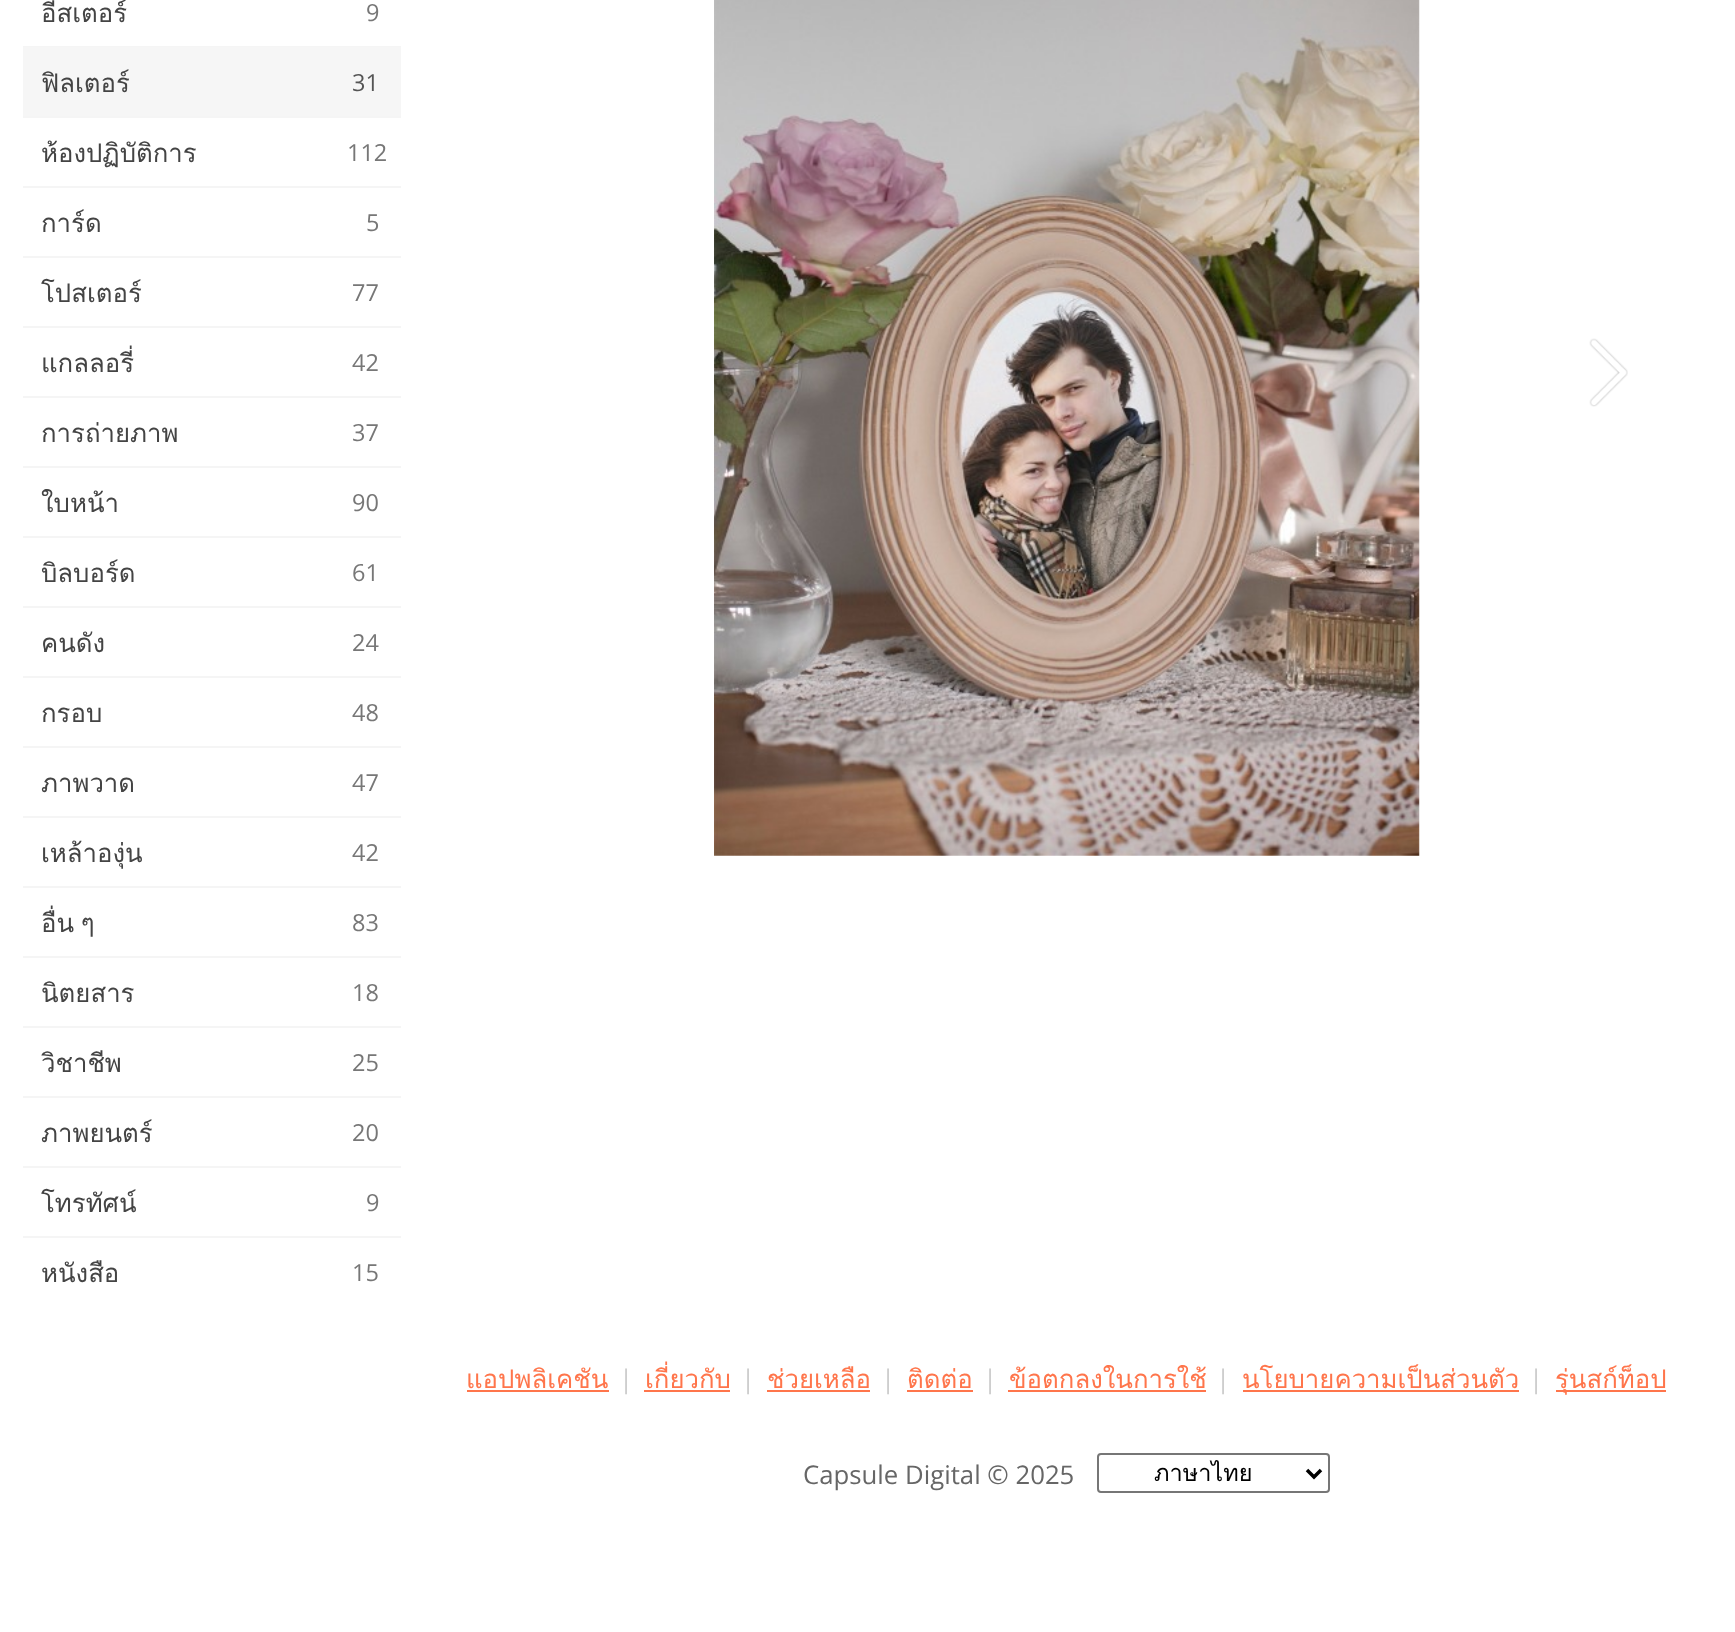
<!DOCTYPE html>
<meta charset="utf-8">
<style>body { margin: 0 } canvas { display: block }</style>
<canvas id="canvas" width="1735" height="1632"></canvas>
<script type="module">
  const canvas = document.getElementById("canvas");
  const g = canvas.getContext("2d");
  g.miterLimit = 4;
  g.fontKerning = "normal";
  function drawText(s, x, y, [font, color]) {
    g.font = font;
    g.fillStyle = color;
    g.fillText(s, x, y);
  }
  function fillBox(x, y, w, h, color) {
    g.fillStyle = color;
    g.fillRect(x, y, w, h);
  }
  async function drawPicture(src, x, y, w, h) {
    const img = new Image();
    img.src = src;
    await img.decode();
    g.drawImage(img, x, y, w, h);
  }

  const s1 = ["25.75px Loma", "#444444"];
  const s2 = ["23.5px Open Sans", "#777777"];
  const s3 = ["23.5px Open Sans", "#555555"];
  const s4 = ["25.75px Loma", "#FF754B"];
  const s5 = ["25.75px Open Sans", "#CCCCCC"];
  const s6 = ["25.75px Open Sans", "#666666"];
  const s7 = ["23.5px Loma", "#000000"];

  fillBox(0, 0, 1735, 1632, "#FFFFFF");
  drawText("อีสเตอร์", 41, 22, s1);
  drawText("9", 366, 21, s2);
  fillBox(23, 46, 378, 1, "#F5F5F5");
  fillBox(23, 47, 378, 69, "#F6F6F6");
  drawText("ฟิลเตอร์", 41, 92, s1);
  drawText("31", 352, 91, s3);
  fillBox(23, 116, 378, 2, "#F5F5F5");
  drawText("ห้องปฏิบัติการ", 41, 162, s1);
  drawText("112", 347, 161, s2);
  fillBox(23, 186, 378, 2, "#F5F5F5");
  drawText("การ์ด", 41, 232, s1);
  drawText("5", 366, 231, s2);
  fillBox(23, 256, 378, 2, "#F5F5F5");
  drawText("โปสเตอร์", 41, 302, s1);
  drawText("77", 352, 301, s2);
  fillBox(23, 326, 378, 2, "#F5F5F5");
  drawText("แกลลอรี่", 41, 372, s1);
  drawText("42", 352, 371, s2);
  fillBox(23, 396, 378, 2, "#F5F5F5");
  drawText("การถ่ายภาพ", 41, 442, s1);
  drawText("37", 352, 441, s2);
  fillBox(23, 466, 378, 2, "#F5F5F5");
  drawText("ใบหน้า", 41, 512, s1);
  drawText("90", 352, 511, s2);
  fillBox(23, 536, 378, 2, "#F5F5F5");
  drawText("บิลบอร์ด", 41, 582, s1);
  drawText("61", 352, 581, s2);
  fillBox(23, 606, 378, 2, "#F5F5F5");
  drawText("คนดัง", 41, 652, s1);
  drawText("24", 352, 651, s2);
  fillBox(23, 676, 378, 2, "#F5F5F5");
  drawText("กรอบ", 41, 722, s1);
  drawText("48", 352, 721, s2);
  fillBox(23, 746, 378, 2, "#F5F5F5");
  drawText("ภาพวาด", 41, 792, s1);
  drawText("47", 352, 791, s2);
  fillBox(23, 816, 378, 2, "#F5F5F5");
  drawText("เหล้าองุ่น", 41, 862, s1);
  drawText("42", 352, 861, s2);
  fillBox(23, 886, 378, 2, "#F5F5F5");
  g.wordSpacing = "-2px";
  drawText("อื่น ๆ", 41, 932, s1);
  g.wordSpacing = "0px";
  drawText("83", 352, 931, s2);
  fillBox(23, 956, 378, 2, "#F5F5F5");
  drawText("นิตยสาร", 41, 1002, s1);
  drawText("18", 352, 1001, s2);
  fillBox(23, 1026, 378, 2, "#F5F5F5");
  drawText("วิชาชีพ", 41, 1072, s1);
  drawText("25", 352, 1071, s2);
  fillBox(23, 1096, 378, 2, "#F5F5F5");
  drawText("ภาพยนตร์", 41, 1142, s1);
  drawText("20", 352, 1141, s2);
  fillBox(23, 1166, 378, 2, "#F5F5F5");
  drawText("โทรทัศน์", 41, 1212, s1);
  drawText("9", 366, 1211, s2);
  fillBox(23, 1236, 378, 2, "#F5F5F5");
  drawText("หนังสือ", 41, 1282, s1);
  drawText("15", 352, 1281, s2);
  await drawPicture("pic1.png", 714, 0, 706, 856);
  await drawPicture("pic2.png", 1589, 338, 39, 69);
  drawText("แอปพลิเคชัน", 466, 1388, s4);
  fillBox(467, 1390, 142, 2, "#FF754B");
  drawText("|", 619, 1388, s5);
  drawText("เกี่ยวกับ", 645, 1388, s4);
  fillBox(644, 1390, 86, 2, "#FF754B");
  drawText("|", 741, 1388, s5);
  drawText("ช่วยเหลือ", 767, 1388, s4);
  fillBox(767, 1390, 103, 2, "#FF754B");
  drawText("|", 881, 1388, s5);
  drawText("ติดต่อ", 907, 1388, s4);
  fillBox(907, 1390, 66, 2, "#FF754B");
  drawText("|", 983, 1388, s5);
  drawText("ข้อตกลงในการใช้", 1009, 1388, s4);
  fillBox(1008, 1390, 198, 2, "#FF754B");
  drawText("|", 1216, 1388, s5);
  drawText("นโยบายความเป็นส่วนตัว", 1242, 1388, s4);
  fillBox(1243, 1390, 276, 2, "#FF754B");
  drawText("|", 1529, 1388, s5);
  fillBox(1556, 1390, 110, 2, "#FF754B");
  drawText("รุ่นสก์ท็อป", 1555, 1388, s4);
  drawText("Capsule Digital © 2025", 803, 1484, s6);
  g.beginPath();
  g.roundRect(1098, 1454, 231, 38, 3);
  g.strokeStyle = "#767676";
  g.lineWidth = 2;
  g.stroke();
  g.beginPath();
  g.moveTo(1307, 1470);
  g.lineTo(1314, 1477);
  g.lineTo(1321, 1470);
  g.strokeStyle = "#000000";
  g.lineWidth = 3.5;
  g.stroke();
  drawText("ภาษาไทย", 1154, 1481, s7);
</script>
